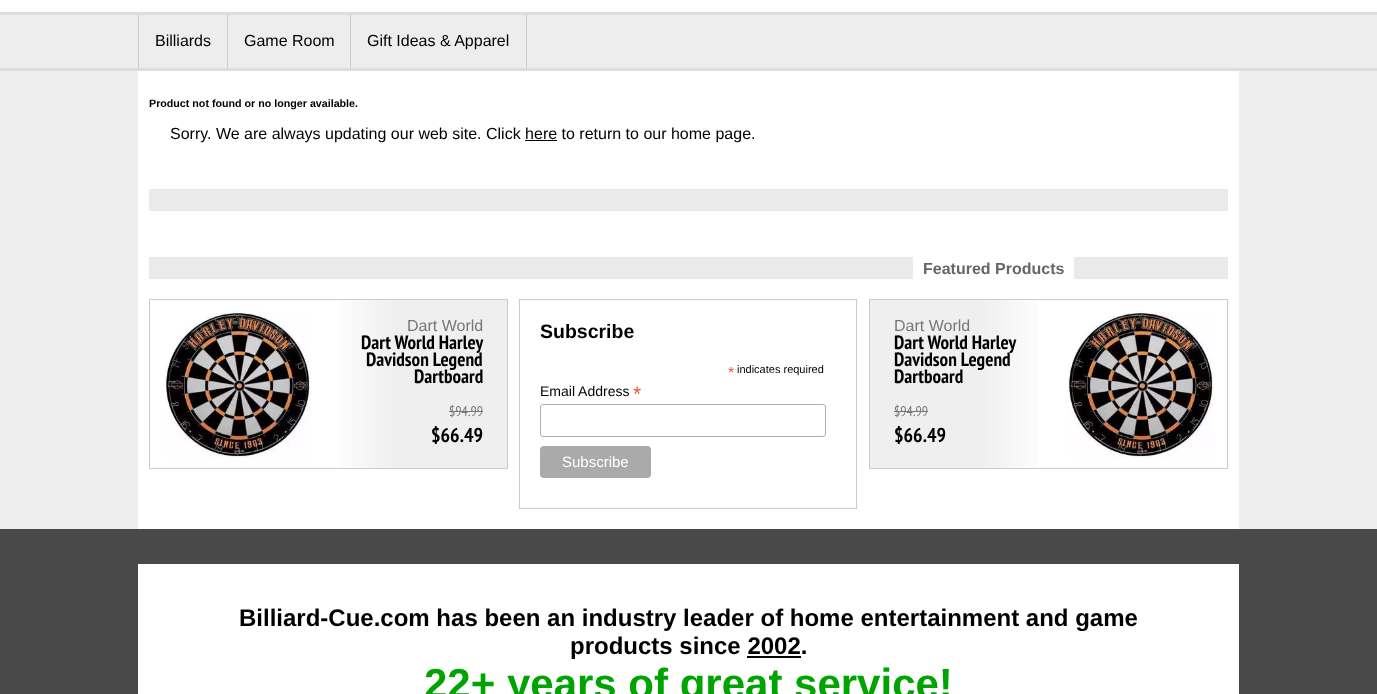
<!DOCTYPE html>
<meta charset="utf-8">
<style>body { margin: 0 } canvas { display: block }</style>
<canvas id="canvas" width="1377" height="694"></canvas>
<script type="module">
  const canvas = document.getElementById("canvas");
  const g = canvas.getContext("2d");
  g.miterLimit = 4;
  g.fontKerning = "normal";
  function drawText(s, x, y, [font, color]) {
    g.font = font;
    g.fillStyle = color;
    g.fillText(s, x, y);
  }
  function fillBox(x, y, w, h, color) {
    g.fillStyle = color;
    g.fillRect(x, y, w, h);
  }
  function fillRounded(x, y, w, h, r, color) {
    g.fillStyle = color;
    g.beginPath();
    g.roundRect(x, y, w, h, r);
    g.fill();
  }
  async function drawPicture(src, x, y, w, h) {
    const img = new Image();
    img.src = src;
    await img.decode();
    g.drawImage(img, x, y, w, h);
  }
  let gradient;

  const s1 = ["16px Liberation Sans", "#000000"];
  const s2 = ["bold 10.7px Liberation Sans", "#000000"];
  const s3 = ["bold 16px Liberation Sans", "#666666"];
  const s4 = ["16px Liberation Sans", "#777777"];
  const s5 = ["bold 19.25px PT Sans Narrow", "#000000"];
  const s6 = ["14px PT Sans Narrow", "#777777"];
  const s7 = ["bold 20px PT Sans Narrow", "#000000"];
  const s8 = ["bold 19.5px Liberation Sans", "#000000"];
  const s9 = ["16px Liberation Sans", "#E85C41"];
  const s10 = ["11px Liberation Sans", "#000000"];
  const s11 = ["14px Liberation Sans", "#000000"];
  const s12 = ["21px Liberation Sans", "#E85C41"];
  const s13 = ["15px Liberation Sans", "#FFFFFF"];
  const s14 = ["bold 24px Liberation Sans", "#000000"];
  const s15 = ["bold 42px Liberation Sans", "#00A400"];

  fillBox(0, 0, 1377, 694, "#EDEDED");
  fillBox(0, 0, 1377, 12, "#FFFFFF");
  fillBox(0, 12, 1377, 3, "#DDDDDD");
  fillBox(0, 68, 1377, 3, "#DDDDDD");
  fillBox(227, 15, 1, 53, "#CCCCCC");
  fillBox(138, 15, 1, 53, "#CCCCCC");
  drawText("Billiards", 155, 46, s1);
  fillBox(350, 15, 1, 53, "#CCCCCC");
  drawText("Game Room", 244, 46, s1);
  fillBox(526, 15, 1, 53, "#CCCCCC");
  drawText("Gift Ideas & Apparel", 367, 46, s1);
  fillBox(138, 71, 1101, 458, "#FFFFFF");
  drawText("Product not found or no longer available.", 149, 107, s2);
  drawText("Sorry. We are always updating our web site. Click here to return to our home page.", 170, 139, s1);
  fillBox(525, 140, 32, 1, "#000000");
  fillBox(149, 189, 1079, 22, "#EAEAEA");
  fillBox(149, 257, 1079, 22, "#EAEAEA");
  fillBox(913, 257, 161, 22, "#FFFFFF");
  drawText("Featured Products", 923, 274, s3);
  gradient = g.createLinearGradient(149, 384, 508, 384);
  gradient.addColorStop(0.5, "#FFFFFF");
  gradient.addColorStop(0.69, "#EFEFEF");
  g.fillStyle = gradient;
  g.fillRect(339, 300, 168, 168);
  g.strokeStyle = "#CCCCCC";
  g.strokeRect(149.5, 299.5, 358, 169);
  await drawPicture("pic1.png", 165, 311, 146, 147);
  drawText("Dart World", 407, 331, s4);
  drawText("Dart World Harley", 361, 349, s5);
  drawText("Davidson Legend", 366, 366, s5);
  drawText("Dartboard", 414, 383, s5);
  drawText("$94.99", 449, 416, s6);
  fillBox(449, 411, 34, 1, "#777777");
  drawText("$66.49", 431, 442, s7);
  g.strokeRect(519.5, 299.5, 337, 209);
  drawText("Subscribe", 540, 338, s8);
  drawText("*", 728, 378, s9);
  drawText("indicates required", 737, 373, s10);
  drawText("Email Address", 540, 396, s11);
  drawText("*", 633, 401, s12);
  g.beginPath();
  g.roundRect(540.5, 404.5, 285, 32, 2.5);
  g.strokeStyle = "#ABB0B2";
  g.stroke();
  fillRounded(540, 446, 111, 32, 4, "#AAAAAA");
  drawText("Subscribe", 562, 467, s13);
  gradient = g.createLinearGradient(869, 384, 1228, 384);
  gradient.addColorStop(0.31, "#EFEFEF");
  gradient.addColorStop(0.5, "#FFFFFF");
  g.fillStyle = gradient;
  g.fillRect(870, 300, 168, 168);
  g.strokeStyle = "#CCCCCC";
  g.strokeRect(869.5, 299.5, 358, 169);
  drawText("Dart World", 894, 331, s4);
  await drawPicture("pic2.png", 1068, 311, 146, 147);
  drawText("Dart World Harley", 894, 349, s5);
  drawText("Davidson Legend", 894, 366, s5);
  drawText("Dartboard", 894, 383, s5);
  drawText("$94.99", 894, 416, s6);
  fillBox(894, 411, 34, 1, "#777777");
  drawText("$66.49", 894, 442, s7);
  fillBox(0, 529, 1377, 165, "#494949");
  fillBox(138, 564, 1101, 130, "#FFFFFF");
  drawText("Billiard-Cue.com has been an industry leader of home entertainment and game", 239, 626, s14);
  drawText("products since 2002.", 570, 654, s14);
  fillBox(747, 656, 54, 2, "#050505");
  drawText("22+ years of great service!", 424, 698, s15);
</script>
